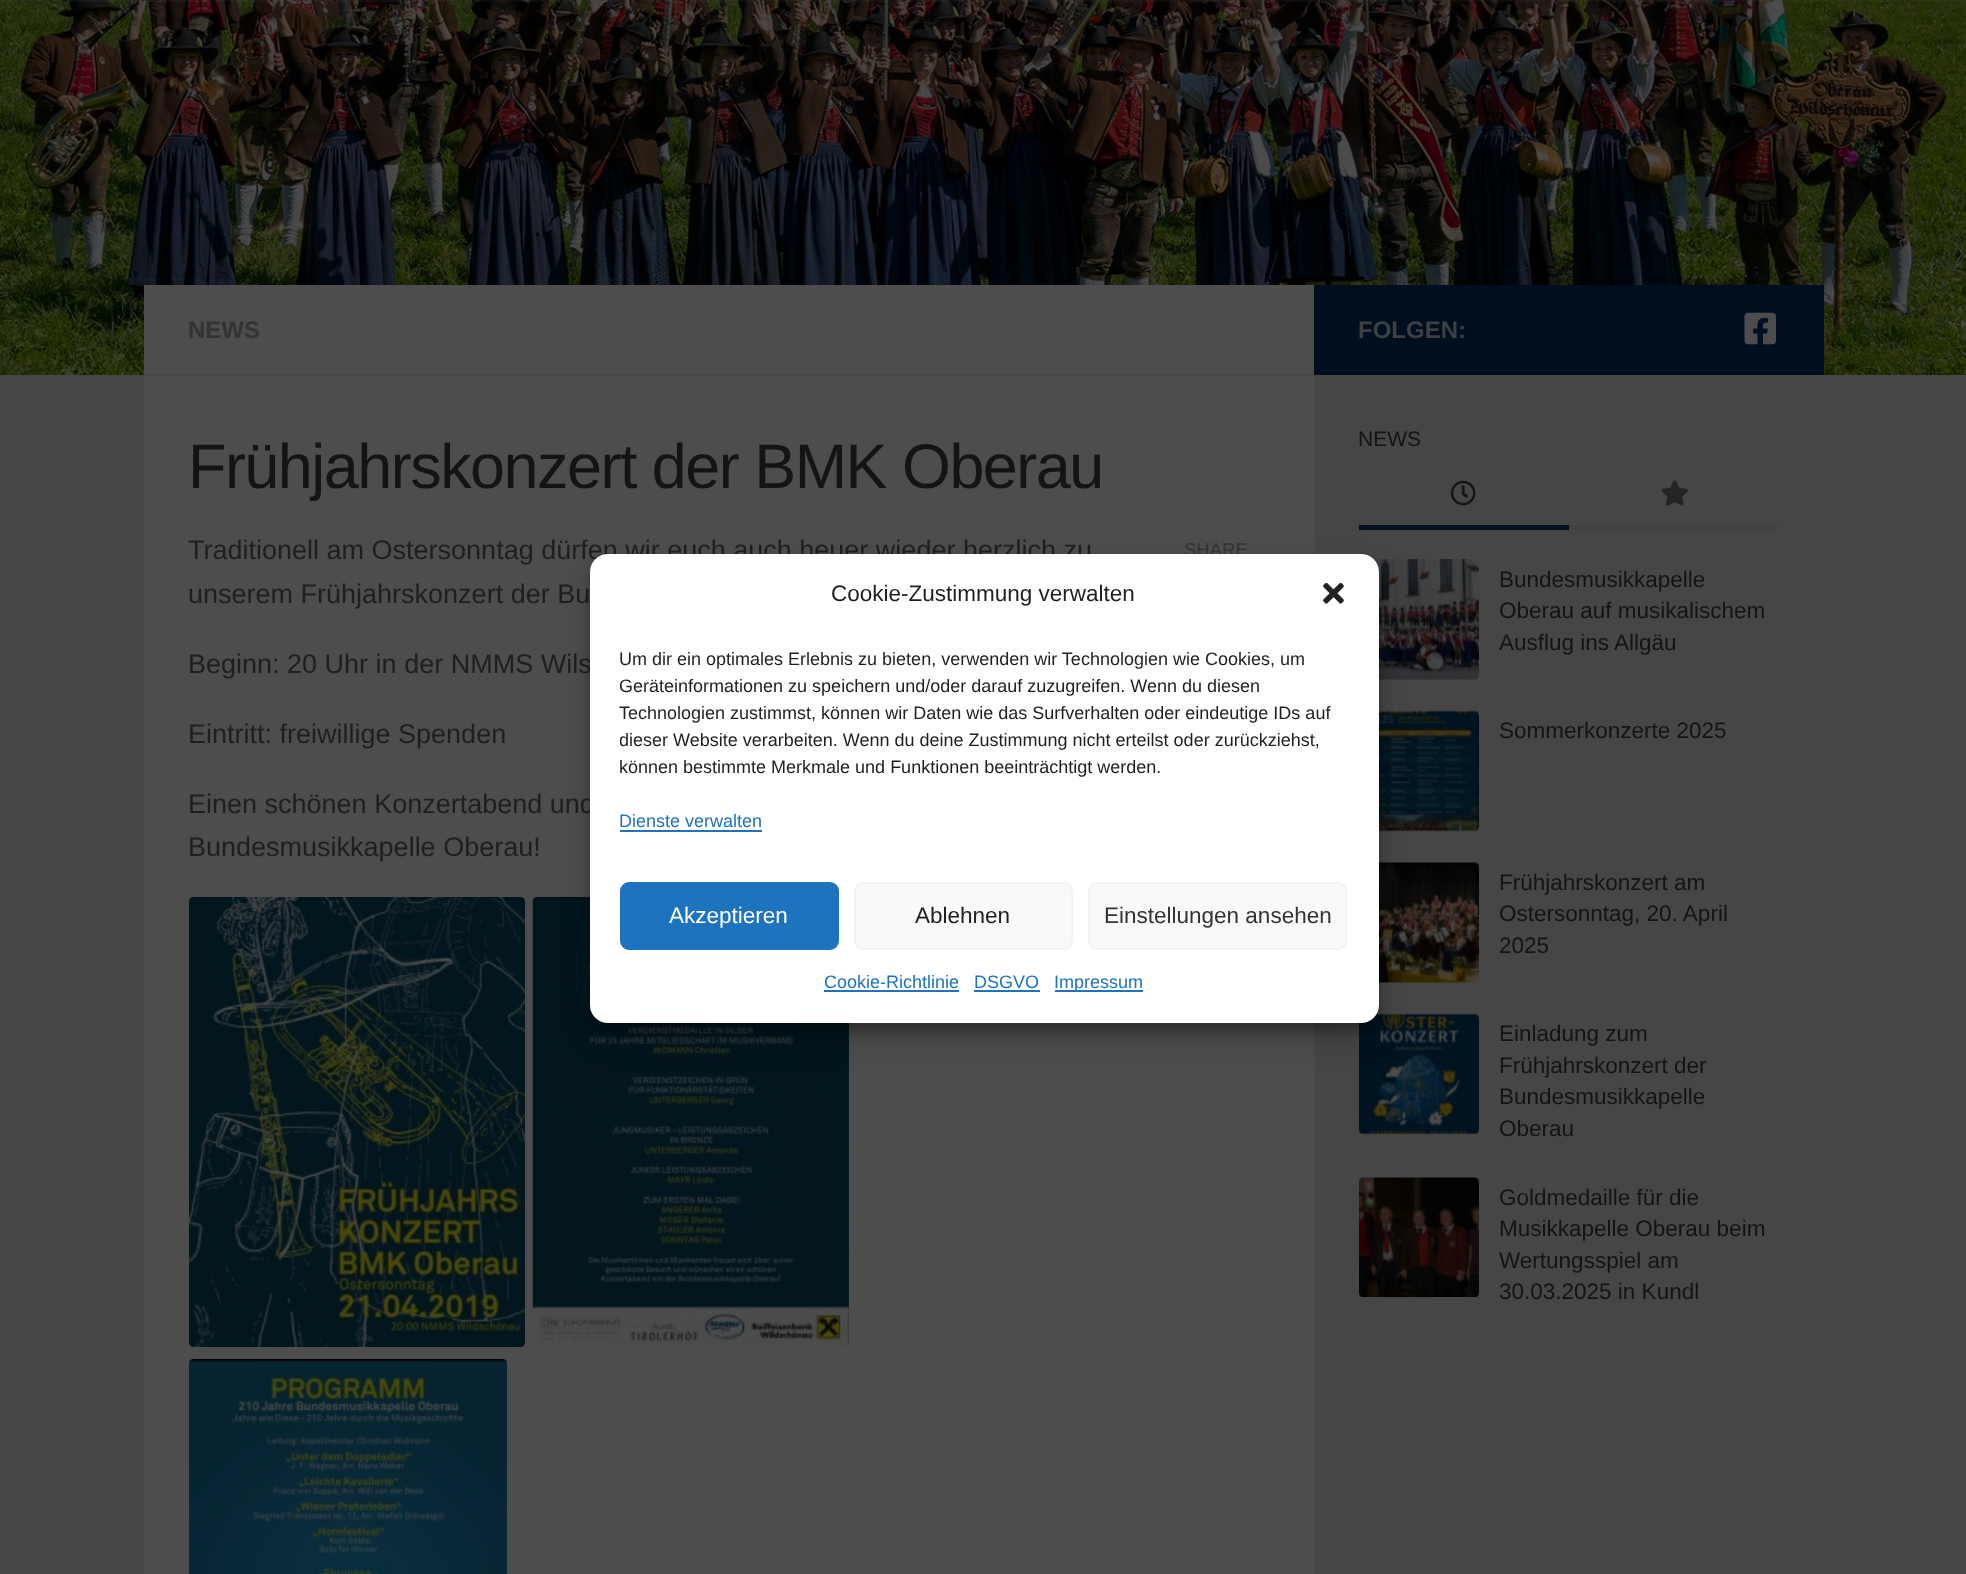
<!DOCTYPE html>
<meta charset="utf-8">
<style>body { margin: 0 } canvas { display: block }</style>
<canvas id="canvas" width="1966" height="1574"></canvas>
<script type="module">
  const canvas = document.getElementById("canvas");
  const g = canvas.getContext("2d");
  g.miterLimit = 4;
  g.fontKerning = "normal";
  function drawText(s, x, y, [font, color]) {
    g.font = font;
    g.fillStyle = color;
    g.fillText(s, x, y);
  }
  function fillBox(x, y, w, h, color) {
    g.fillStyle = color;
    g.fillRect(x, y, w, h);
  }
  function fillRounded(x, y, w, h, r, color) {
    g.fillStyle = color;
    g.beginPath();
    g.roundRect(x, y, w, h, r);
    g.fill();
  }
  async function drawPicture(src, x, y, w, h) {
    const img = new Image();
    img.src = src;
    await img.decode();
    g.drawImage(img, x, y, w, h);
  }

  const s1 = ["bold 24px Liberation Sans", "#333333"];
  const s2 = ["62.9px Liberation Sans", "#141414"];
  const s3 = ["27px Liberation Sans", "#1F1F1F"];
  const s4 = ["18.5px Liberation Sans", "#333333"];
  const s5 = ["bold 24px Liberation Sans", "#3D4043"];
  const s6 = ["21px Liberation Sans", "#141414"];
  const s7 = ["22.5px Liberation Sans", "#141414"];
  const s8 = ["22.5px Liberation Sans", "#1F1F1F"];
  const s9 = ["18px Liberation Sans", "#1F1F1F"];
  const s10 = ["18px Liberation Sans", "#1E73BE"];
  const s11 = ["22.5px Liberation Sans", "#FFFFFF"];
  const s12 = ["22.5px Liberation Sans", "#333333"];

  fillBox(0, 0, 1966, 1574, "#464646");
  await drawPicture("pic1.png", 0, 0, 1966, 375);
  g.fillStyle = "rgba(77, 77, 77, 0.15)";
  g.beginPath();
  g.moveTo(0, 0);
  g.lineTo(0, 2);
  g.lineTo(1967, 2);
  g.lineTo(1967, -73);
  g.lineTo(1966, -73);
  g.lineTo(1966, 0);
  g.closePath();
  g.fill();
  fillBox(144, 285, 1170, 1289, "#4D4D4D");
  fillBox(144, 374, 1170, 2, "#474747");
  drawText("NEWS", 188, 338, s1);
  g.letterSpacing = "-1.5px";
  drawText("Frühjahrskonzert der BMK Oberau", 188, 488, s2);
  g.letterSpacing = "0px";
  drawText("Traditionell am Ostersonntag dürfen wir euch auch heuer wieder herzlich zu", 188, 559, s3);
  drawText("unserem Frühjahrskonzert der Bu", 188, 603, s3);
  drawText("Beginn: 20 Uhr in der NMMS Wils", 188, 673, s3);
  drawText("Eintritt: freiwillige Spenden", 188, 743, s3);
  drawText("Einen schönen Konzertabend und", 188, 813, s3);
  drawText("Bundesmusikkapelle Oberau!", 188, 856, s3);
  await drawPicture("pic2.png", 189, 897, 336, 450);
  await drawPicture("pic3.png", 532, 897, 317, 450);
  await drawPicture("pic4.png", 189, 1359, 318, 215);
  drawText("SHARE", 1184, 556, s4);
  fillBox(1314, 285, 510, 90, "#000F1F");
  drawText("FOLGEN:", 1358, 338, s5);
  await drawPicture("pic5.png", 1744, 312, 32, 33);
  drawText("NEWS", 1358, 446, s6);
  fillBox(1569, 525, 210, 5, "#424242");
  fillBox(1359, 525, 210, 5, "#000F1F");
  await drawPicture("pic6.png", 1450, 480, 26, 26);
  await drawPicture("pic7.png", 1661, 480, 27, 26);
  await drawPicture("pic8.png", 1373, 559, 106, 121);
  drawText("Bundesmusikkapelle", 1499, 587, s7);
  drawText("Oberau auf musikalischem", 1499, 618, s7);
  drawText("Ausflug ins Allgäu", 1499, 650, s7);
  await drawPicture("pic9.png", 1379, 710, 100, 122);
  drawText("Sommerkonzerte 2025", 1499, 738, s7);
  await drawPicture("pic10.png", 1379, 862, 100, 121);
  drawText("Frühjahrskonzert am", 1499, 890, s7);
  drawText("Ostersonntag, 20. April", 1499, 921, s7);
  drawText("2025", 1499, 953, s7);
  await drawPicture("pic11.png", 1359, 1013, 120, 122);
  drawText("Einladung zum", 1499, 1041, s7);
  drawText("Frühjahrskonzert der", 1499, 1073, s7);
  drawText("Bundesmusikkapelle", 1499, 1104, s7);
  drawText("Oberau", 1499, 1136, s7);
  await drawPicture("pic12.png", 1359, 1177, 120, 120);
  drawText("Goldmedaille für die", 1499, 1205, s7);
  drawText("Musikkapelle Oberau beim", 1499, 1236, s7);
  drawText("Wertungsspiel am", 1499, 1268, s7);
  drawText("30.03.2025 in Kundl", 1499, 1299, s7);
  g.fillStyle = "rgba(0, 0, 0, 0.23)";
  g.filter = "blur(4.5px)";
  g.beginPath();
  g.roundRect(590, 563, 789, 469, 18);
  g.fill();
  g.filter = "none";
  g.fillStyle = "rgba(0, 0, 0, 0.19)";
  g.filter = "blur(15px)";
  g.beginPath();
  g.roundRect(590, 569, 789, 469, 18);
  g.fill();
  g.filter = "none";
  fillRounded(590, 554, 789, 469, 18, "#FFFFFF");
  drawText("Cookie-Zustimmung verwalten", 831, 601, s8);
  await drawPicture("pic13.png", 1323, 583, 21, 21);
  drawText("Um dir ein optimales Erlebnis zu bieten, verwenden wir Technologien wie Cookies, um", 619, 665, s9);
  g.save();
  g.beginPath();
  g.rect(620, 647, 729, 142);
  g.clip();
  drawText("Geräteinformationen zu speichern und/oder darauf zuzugreifen. Wenn du diesen", 619, 692, s9);
  g.restore();
  drawText("Technologien zustimmst, können wir Daten wie das Surfverhalten oder eindeutige IDs auf", 619, 719, s9);
  g.save();
  g.beginPath();
  g.rect(620, 647, 729, 142);
  g.clip();
  drawText("dieser Website verarbeiten. Wenn du deine Zustimmung nicht erteilst oder zurückziehst,", 619, 746, s9);
  g.restore();
  drawText("können bestimmte Merkmale und Funktionen beeinträchtigt werden.", 619, 773, s9);
  drawText("Dienste verwalten", 619, 827, s10);
  fillBox(620, 830, 142, 2, "#1E73BE");
  g.beginPath();
  g.roundRect(621, 883, 217, 66, 8);
  g.fill();
  g.strokeStyle = "#1E73BE";
  g.lineWidth = 2;
  g.stroke();
  drawText("Akzeptieren", 669, 923, s11);
  g.fillStyle = "#F9F9F9";
  g.beginPath();
  g.roundRect(855, 883, 217, 66, 8);
  g.fill();
  g.strokeStyle = "#F2F2F2";
  g.stroke();
  drawText("Ablehnen", 915, 923, s8);
  g.fillStyle = "#F9F9F9";
  g.beginPath();
  g.roundRect(1089, 883, 257, 66, 8);
  g.fill();
  g.stroke();
  drawText("Einstellungen ansehen", 1104, 923, s12);
  drawText("Cookie-Richtlinie", 824, 988, s10);
  fillBox(824, 990, 135, 2, "#1E73BE");
  drawText("DSGVO", 974, 988, s10);
  fillBox(974, 990, 66, 2, "#1E73BE");
  fillBox(1055, 990, 88, 2, "#1E73BE");
  drawText("Impressum", 1054, 988, s10);
</script>
